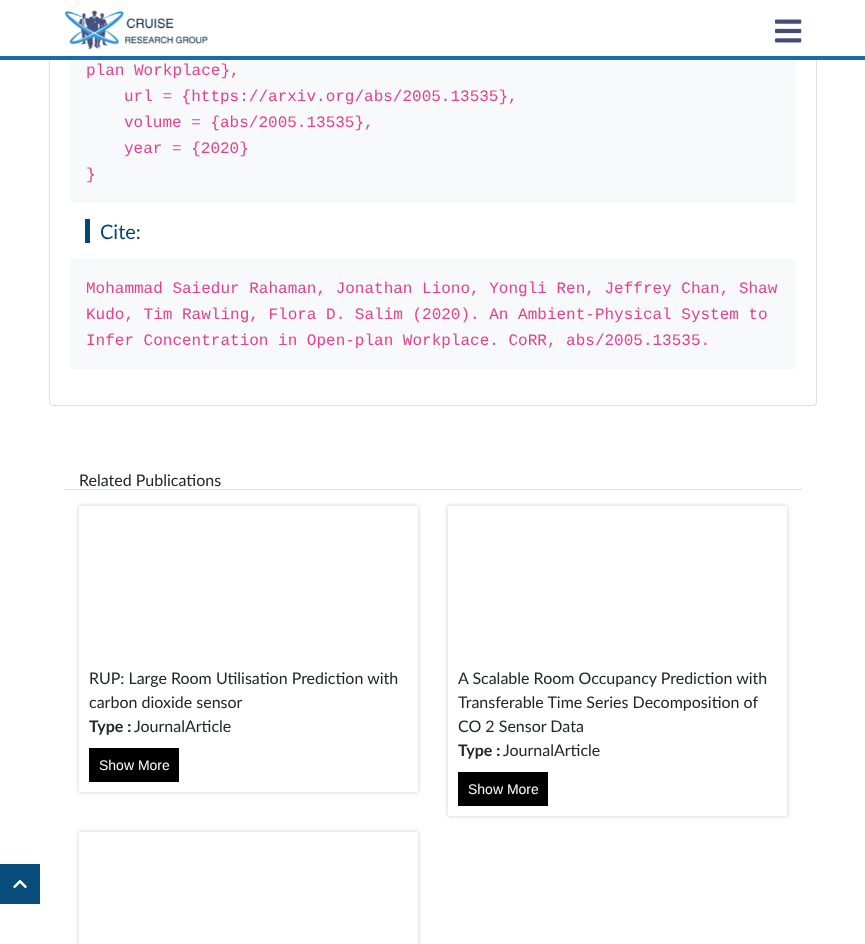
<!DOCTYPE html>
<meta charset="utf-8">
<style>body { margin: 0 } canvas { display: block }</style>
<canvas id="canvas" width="865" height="944"></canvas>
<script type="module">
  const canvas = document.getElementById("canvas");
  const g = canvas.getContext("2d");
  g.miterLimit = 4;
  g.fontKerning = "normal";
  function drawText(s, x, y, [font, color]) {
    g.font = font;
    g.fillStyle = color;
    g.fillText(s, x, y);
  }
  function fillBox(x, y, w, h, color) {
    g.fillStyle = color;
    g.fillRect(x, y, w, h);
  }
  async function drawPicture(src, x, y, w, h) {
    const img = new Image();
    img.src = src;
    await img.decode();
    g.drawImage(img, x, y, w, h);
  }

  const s1 = ["16px Liberation Mono", "#E83E8C"];
  const s2 = ["20px Lato", "#044674"];
  const s3 = ["16px Lato", "#212529"];
  const s4 = ["bold 16px Lato", "#212529"];
  const s5 = ["14px Liberation Sans", "#FFFFFF"];

  fillBox(0, 0, 865, 944, "#FFFFFF");
  g.beginPath();
  g.roundRect(49.5, -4.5, 767, 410, 3.5);
  g.strokeStyle = "#DFDFDF";
  g.stroke();
  fillBox(49, 0, 768, 56, "#FFFFFF");
  fillBox(0, 56, 865, 4, "#176DA9");
  await drawPicture("pic1.png", 64, 10, 144, 40);
  await drawPicture("pic2.png", 775, 19, 27, 24);
  fillBox(70, 60, 726, 143, "#F8F9FA");
  drawText("plan Workplace},", 86, 75, s1);
  drawText("url = {https://arxiv.org/abs/2005.13535},", 124, 101, s1);
  drawText("volume = {abs/2005.13535},", 124, 127, s1);
  drawText("year = {2020}", 124, 153, s1);
  drawText("}", 86, 179, s1);
  fillBox(85, 219, 5, 24, "#044674");
  drawText("Cite:", 100, 239, s2);
  fillBox(70, 259, 726, 110, "#F8F9FA");
  drawText("Mohammad Saiedur Rahaman, Jonathan Liono, Yongli Ren, Jeffrey Chan, Shaw", 86, 293, s1);
  drawText("Kudo, Tim Rawling, Flora D. Salim (2020). An Ambient-Physical System to", 86, 319, s1);
  drawText("Infer Concentration in Open-plan Workplace. CoRR, abs/2005.13535.", 86, 345, s1);
  fillBox(64, 489, 738, 1, "#DEE2E6");
  drawText("Related Publications", 79, 486, s3);
  g.save();
  g.beginPath();
  g.moveTo(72, 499);
  g.lineTo(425, 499);
  g.lineTo(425, 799);
  g.lineTo(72, 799);
  g.closePath();
  g.moveTo(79, 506);
  g.lineTo(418, 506);
  g.lineTo(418, 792);
  g.lineTo(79, 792);
  g.closePath();
  g.clip("evenodd");
  g.fillStyle = "#CCCCCC";
  g.filter = "blur(2px)";
  g.beginPath();
  g.rect(79, 506, 339, 286);
  g.fill();
  g.filter = "none";
  g.restore();
  drawText("RUP: Large Room Utilisation Prediction with", 89, 684, s3);
  drawText("carbon dioxide sensor", 89, 708, s3);
  drawText("Type :", 89, 732, s4);
  drawText("JournalArticle", 134, 732, s3);
  fillBox(89, 748, 90, 34, "#000000");
  drawText("Show More", 99, 770, s5);
  g.save();
  g.beginPath();
  g.moveTo(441, 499);
  g.lineTo(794, 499);
  g.lineTo(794, 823);
  g.lineTo(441, 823);
  g.closePath();
  g.moveTo(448, 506);
  g.lineTo(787, 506);
  g.lineTo(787, 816);
  g.lineTo(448, 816);
  g.closePath();
  g.clip("evenodd");
  g.fillStyle = "#CCCCCC";
  g.filter = "blur(2px)";
  g.beginPath();
  g.rect(448, 506, 339, 310);
  g.fill();
  g.filter = "none";
  g.restore();
  drawText("A Scalable Room Occupancy Prediction with", 458, 684, s3);
  drawText("Transferable Time Series Decomposition of", 458, 708, s3);
  drawText("CO 2 Sensor Data", 458, 732, s3);
  drawText("Type :", 458, 756, s4);
  drawText("JournalArticle", 503, 756, s3);
  fillBox(458, 772, 90, 34, "#000000");
  drawText("Show More", 468, 794, s5);
  g.save();
  g.beginPath();
  g.moveTo(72, 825);
  g.lineTo(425, 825);
  g.lineTo(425, 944);
  g.lineTo(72, 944);
  g.closePath();
  g.moveTo(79, 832);
  g.lineTo(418, 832);
  g.lineTo(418, 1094);
  g.lineTo(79, 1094);
  g.closePath();
  g.clip("evenodd");
  g.fillStyle = "#CCCCCC";
  g.filter = "blur(2px)";
  g.beginPath();
  g.rect(79, 832, 339, 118);
  g.fill();
  g.filter = "none";
  g.restore();
  fillBox(0, 864, 40, 40, "#084C7B");
  await drawPicture("pic3.png", 13, 879, 14, 10);
</script>
